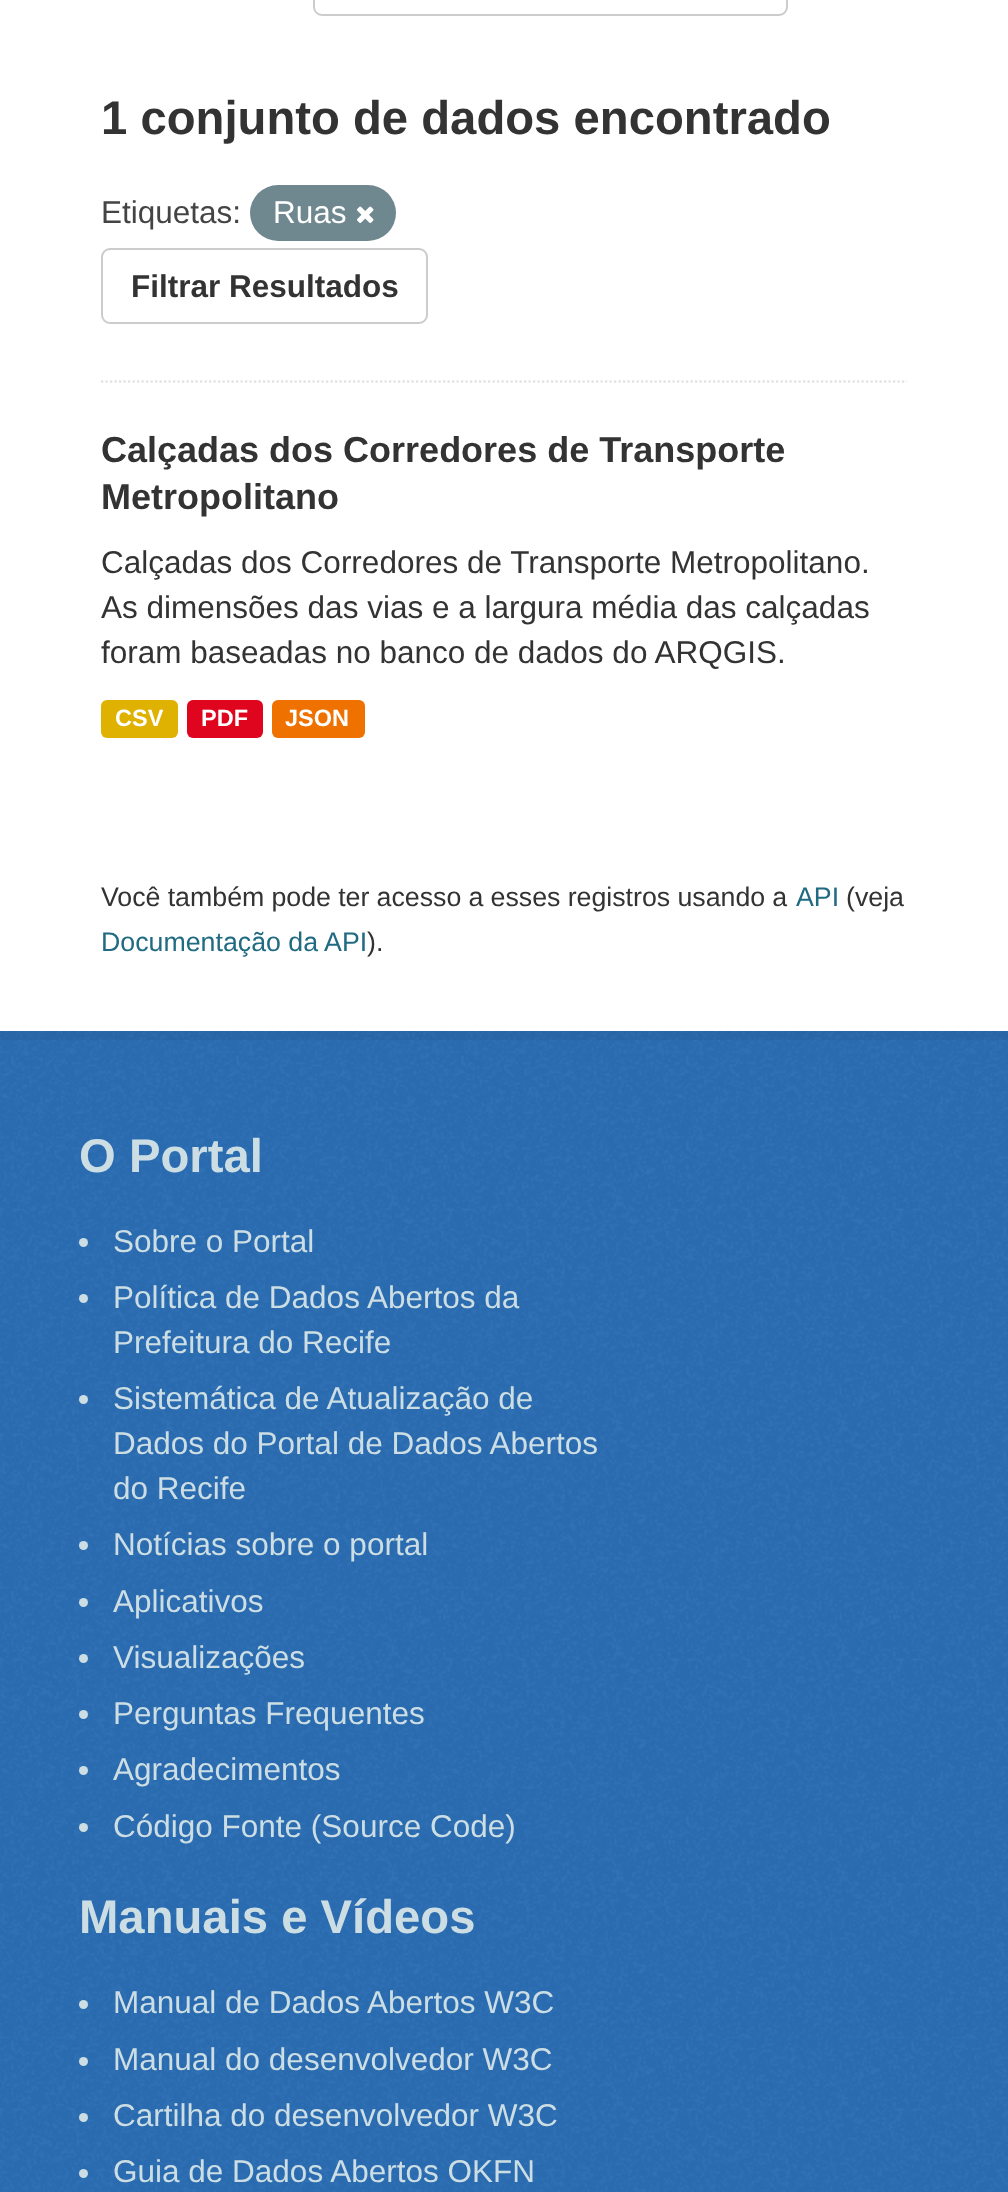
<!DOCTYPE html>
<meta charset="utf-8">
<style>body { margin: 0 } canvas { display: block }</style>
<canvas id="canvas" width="1008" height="2192"></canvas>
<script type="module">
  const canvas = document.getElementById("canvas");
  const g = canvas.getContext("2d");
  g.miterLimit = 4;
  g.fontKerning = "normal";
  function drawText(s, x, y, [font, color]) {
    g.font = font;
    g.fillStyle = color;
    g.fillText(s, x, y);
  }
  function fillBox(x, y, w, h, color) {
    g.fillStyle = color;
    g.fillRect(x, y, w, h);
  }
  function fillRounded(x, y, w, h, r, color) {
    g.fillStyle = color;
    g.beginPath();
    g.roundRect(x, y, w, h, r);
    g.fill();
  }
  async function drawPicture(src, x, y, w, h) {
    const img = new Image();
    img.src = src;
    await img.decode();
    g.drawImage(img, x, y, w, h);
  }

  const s1 = ["bold 47.25px Liberation Sans", "#333333"];
  const s2 = ["31.5px Liberation Sans", "#444444"];
  const s3 = ["31.5px Liberation Sans", "#FFFFFF"];
  const s4 = ["bold 31.5px Liberation Sans", "#333333"];
  const s5 = ["bold 36px Liberation Sans", "#333333"];
  const s6 = ["31.5px Liberation Sans", "#333333"];
  const s7 = ["bold 23.5px Liberation Sans", "#FFFFFF"];
  const s8 = ["26.75px Liberation Sans", "#333333"];
  const s9 = ["26.75px Liberation Sans", "#206B82"];
  const s10 = ["bold 47.25px Liberation Sans", "#CCDEE3"];
  const s11 = ["31.5px Liberation Sans", "#CCDEE3"];

  fillBox(0, 0, 1008, 2192, "#2C6FB6");
  await drawPicture("pic1.png", 0, 1031, 1008, 45);
  g.strokeStyle = "rgba(0, 0, 0, 0.05)";
  g.lineWidth = 9;
  g.strokeRect(-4.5, -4.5, 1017, 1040);
  fillBox(0, 0, 1008, 1031, "#FFFFFF");
  g.beginPath();
  g.moveTo(101, 381.5);
  g.lineTo(907, 381.5);
  g.strokeStyle = "#DDDDDD";
  g.lineWidth = 2.2;
  g.setLineDash([2.25, 2.25]);
  g.stroke();
  g.beginPath();
  g.roundRect(314, -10, 473, 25, 8);
  g.strokeStyle = "#CCCCCC";
  g.lineWidth = 2;
  g.setLineDash([]);
  g.stroke();
  drawText("1 conjunto de dados encontrado", 101, 134, s1);
  drawText("Etiquetas:", 101, 223, s2);
  fillRounded(250, 185, 146, 56, 28, "#6F8890");
  drawText("Ruas", 273, 223, s3);
  await drawPicture("pic2.png", 357, 206, 17, 17);
  g.beginPath();
  g.roundRect(102, 249, 325, 74, 8);
  g.stroke();
  drawText("Filtrar Resultados", 131, 297, s4);
  drawText("Calçadas dos Corredores de Transporte", 101, 462, s5);
  drawText("Metropolitano", 101, 509, s5);
  drawText("Calçadas dos Corredores de Transporte Metropolitano.", 101, 573, s6);
  drawText("As dimensões das vias e a largura média das calçadas", 101, 618, s6);
  drawText("foram baseadas no banco de dados do ARQGIS.", 101, 663, s6);
  fillRounded(101, 700, 77, 38, 6, "#DFB100");
  drawText("CSV", 115, 726, s7);
  fillRounded(187, 700, 76, 38, 6, "#E0051E");
  drawText("PDF", 201, 726, s7);
  fillRounded(272, 700, 93, 38, 6, "#EF7100");
  drawText("JSON", 285, 726, s7);
  g.wordSpacing = "-0.25px";
  drawText("Você também pode ter acesso a esses registros usando a", 101, 906, s8);
  g.wordSpacing = "0px";
  drawText("API", 796, 906, s9);
  drawText("(veja", 846, 906, s8);
  drawText("Documentação da API", 101, 951, s9);
  drawText(").", 367, 951, s8);
  await drawPicture("pic3.png", 0, 1076, 1008, 1116);
  drawText("O Portal", 79, 1172, s10);
  g.beginPath();
  g.arc(83.5, 1242.5, 4.5, 0, Math.PI * 2);
  g.fill();
  drawText("Sobre o Portal", 113, 1252, s11);
  g.beginPath();
  g.arc(83.5, 1298.5, 4.5, 0, Math.PI * 2);
  g.fill();
  drawText("Política de Dados Abertos da", 113, 1308, s11);
  drawText("Prefeitura do Recife", 113, 1353, s11);
  g.beginPath();
  g.arc(83.5, 1399.5, 4.5, 0, Math.PI * 2);
  g.fill();
  drawText("Sistemática de Atualização de", 113, 1409, s11);
  drawText("Dados do Portal de Dados Abertos", 113, 1454, s11);
  drawText("do Recife", 113, 1499, s11);
  g.beginPath();
  g.arc(83.5, 1545.5, 4.5, 0, Math.PI * 2);
  g.fill();
  drawText("Notícias sobre o portal", 113, 1555, s11);
  g.beginPath();
  g.arc(83.5, 1602.5, 4.5, 0, Math.PI * 2);
  g.fill();
  drawText("Aplicativos", 113, 1612, s11);
  g.beginPath();
  g.arc(83.5, 1658.5, 4.5, 0, Math.PI * 2);
  g.fill();
  drawText("Visualizações", 113, 1668, s11);
  g.beginPath();
  g.arc(83.5, 1714.5, 4.5, 0, Math.PI * 2);
  g.fill();
  drawText("Perguntas Frequentes", 113, 1724, s11);
  g.beginPath();
  g.arc(83.5, 1770.5, 4.5, 0, Math.PI * 2);
  g.fill();
  drawText("Agradecimentos", 113, 1780, s11);
  g.beginPath();
  g.arc(83.5, 1827.5, 4.5, 0, Math.PI * 2);
  g.fill();
  drawText("Código Fonte (Source Code)", 113, 1837, s11);
  drawText("Manuais e Vídeos", 79, 1933, s10);
  g.beginPath();
  g.arc(83.5, 2004.5, 4.5, 0, Math.PI * 2);
  g.fill();
  drawText("Manual de Dados Abertos W3C", 113, 2013, s11);
  g.beginPath();
  g.arc(83.5, 2061.5, 4.5, 0, Math.PI * 2);
  g.fill();
  drawText("Manual do desenvolvedor W3C", 113, 2070, s11);
  g.beginPath();
  g.arc(83.5, 2117.5, 4.5, 0, Math.PI * 2);
  g.fill();
  drawText("Cartilha do desenvolvedor W3C", 113, 2126, s11);
  g.beginPath();
  g.arc(83.5, 2173.5, 4.5, 0, Math.PI * 2);
  g.fill();
  drawText("Guia de Dados Abertos OKFN", 113, 2182, s11);
</script>
